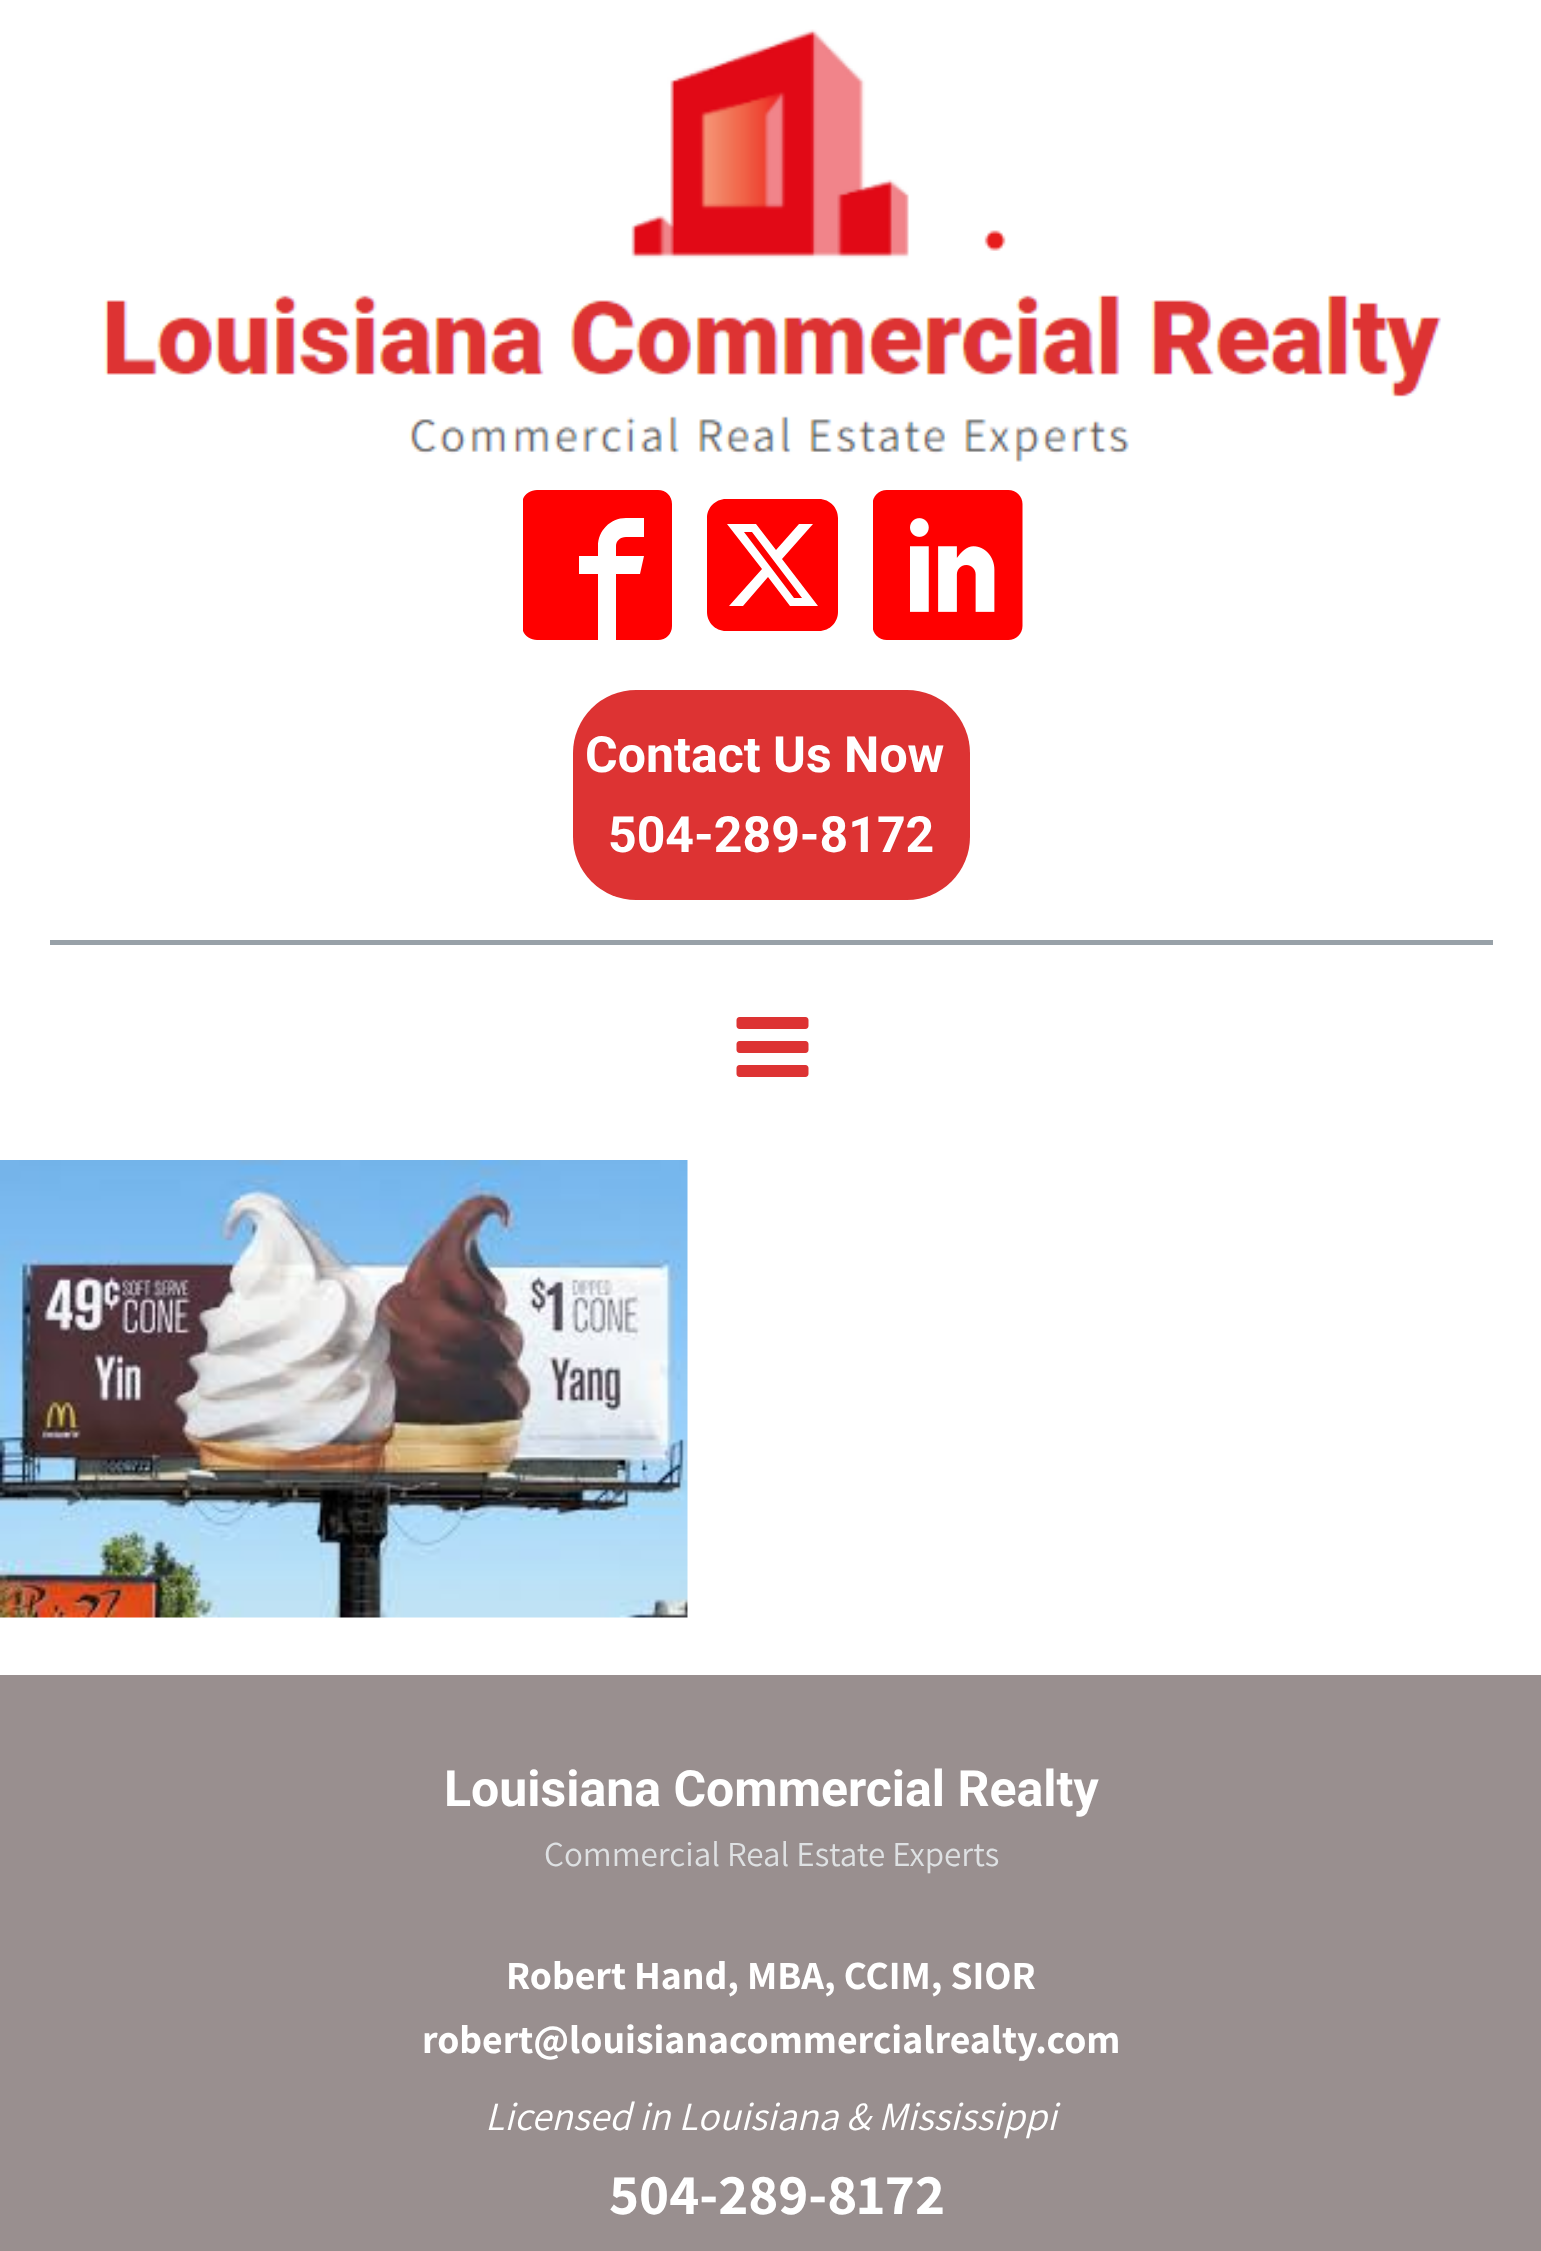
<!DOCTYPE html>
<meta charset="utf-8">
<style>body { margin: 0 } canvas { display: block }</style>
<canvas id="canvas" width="1541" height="2251"></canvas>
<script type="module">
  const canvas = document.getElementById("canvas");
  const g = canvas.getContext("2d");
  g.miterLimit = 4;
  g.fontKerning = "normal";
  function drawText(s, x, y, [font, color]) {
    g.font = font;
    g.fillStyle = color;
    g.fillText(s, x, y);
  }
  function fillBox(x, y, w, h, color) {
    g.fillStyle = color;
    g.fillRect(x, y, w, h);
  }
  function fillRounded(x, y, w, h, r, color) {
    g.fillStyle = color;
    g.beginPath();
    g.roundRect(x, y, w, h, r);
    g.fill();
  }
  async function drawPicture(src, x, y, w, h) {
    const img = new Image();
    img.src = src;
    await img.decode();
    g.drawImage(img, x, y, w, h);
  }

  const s1 = ["bold 50px Roboto", "#FFFFFF"];
  const s2 = ["35px Assistant", "#DEE1E3"];
  const s3 = ["bold 40px Assistant", "#FFFFFF"];
  const s4 = ["italic 40px Assistant", "#FFFFFF"];
  const s5 = ["bold 57.5px Assistant", "#FFFFFF"];

  fillBox(0, 0, 1541, 2251, "#FFFFFF");
  await drawPicture("pic1.png", 104, 29, 1338, 433);
  g.save();
  g.beginPath();
  g.rect(523, 490, 150, 150);
  g.clip();
  g.fillStyle = "#FF0000";
  g.beginPath();
  g.moveTo(658, 490);
  g.lineTo(537, 490);
  g.bezierCurveTo(529, 490, 522, 496, 522, 504);
  g.lineTo(522, 626);
  g.bezierCurveTo(522, 634, 529, 640, 537, 640);
  g.lineTo(598, 640);
  g.lineTo(598, 574);
  g.lineTo(579, 574);
  g.lineTo(579, 556);
  g.lineTo(598, 556);
  g.lineTo(598, 546);
  g.bezierCurveTo(598, 531, 610, 518, 626, 518);
  g.lineTo(644, 518);
  g.lineTo(644, 537);
  g.lineTo(626, 537);
  g.bezierCurveTo(620, 537, 616, 541, 616, 546);
  g.lineTo(616, 556);
  g.lineTo(644, 556);
  g.lineTo(640, 574);
  g.lineTo(616, 574);
  g.lineTo(616, 640);
  g.lineTo(658, 640);
  g.bezierCurveTo(666, 640, 672, 634, 672, 626);
  g.lineTo(672, 504);
  g.bezierCurveTo(672, 496, 666, 490, 658, 490);
  g.closePath();
  g.fill();
  g.restore();
  g.fillStyle = "#FF0000";
  g.beginPath();
  g.moveTo(726, 499);
  g.bezierCurveTo(715, 499, 707, 508, 707, 518);
  g.lineTo(707, 612);
  g.bezierCurveTo(707, 622, 715, 631, 726, 631);
  g.lineTo(819, 631);
  g.bezierCurveTo(830, 631, 838, 622, 838, 612);
  g.lineTo(838, 518);
  g.bezierCurveTo(838, 508, 830, 499, 819, 499);
  g.closePath();
  g.moveTo(813, 524);
  g.lineTo(782, 559);
  g.lineTo(818, 606);
  g.lineTo(790, 606);
  g.lineTo(768, 577);
  g.lineTo(743, 606);
  g.lineTo(729, 606);
  g.lineTo(762, 569);
  g.lineTo(727, 524);
  g.lineTo(756, 524);
  g.lineTo(776, 550);
  g.lineTo(799, 524);
  g.closePath();
  g.moveTo(802, 598);
  g.lineTo(752, 532);
  g.lineTo(744, 532);
  g.lineTo(794, 598);
  g.closePath();
  g.fill();
  await drawPicture("pic2.png", 873, 490, 150, 150);
  fillRounded(573, 690, 397, 210, 63, "#DD3333");
  drawText("Contact Us Now", 585, 772, s1);
  drawText("504-289-8172", 608, 852, s1);
  fillBox(50, 940, 1443, 5, "#98A1A8");
  await drawPicture("pic3.png", 736, 1017, 73, 60);
  await drawPicture("pic4.png", 0, 1160, 688, 458);
  fillBox(0, 1675, 1541, 576, "#998F8F");
  drawText("Louisiana Commercial Realty", 444, 1806, s1);
  drawText("Commercial Real Estate Experts", 544, 1866, s2);
  drawText("Robert Hand, MBA, CCIM, SIOR", 506, 1989, s3);
  drawText("robert@louisianacommercialrealty.com", 422, 2053, s3);
  drawText("Licensed in Louisiana & Mississippi", 485, 2130, s4);
  drawText("504-289-8172", 609, 2214, s5);
</script>
